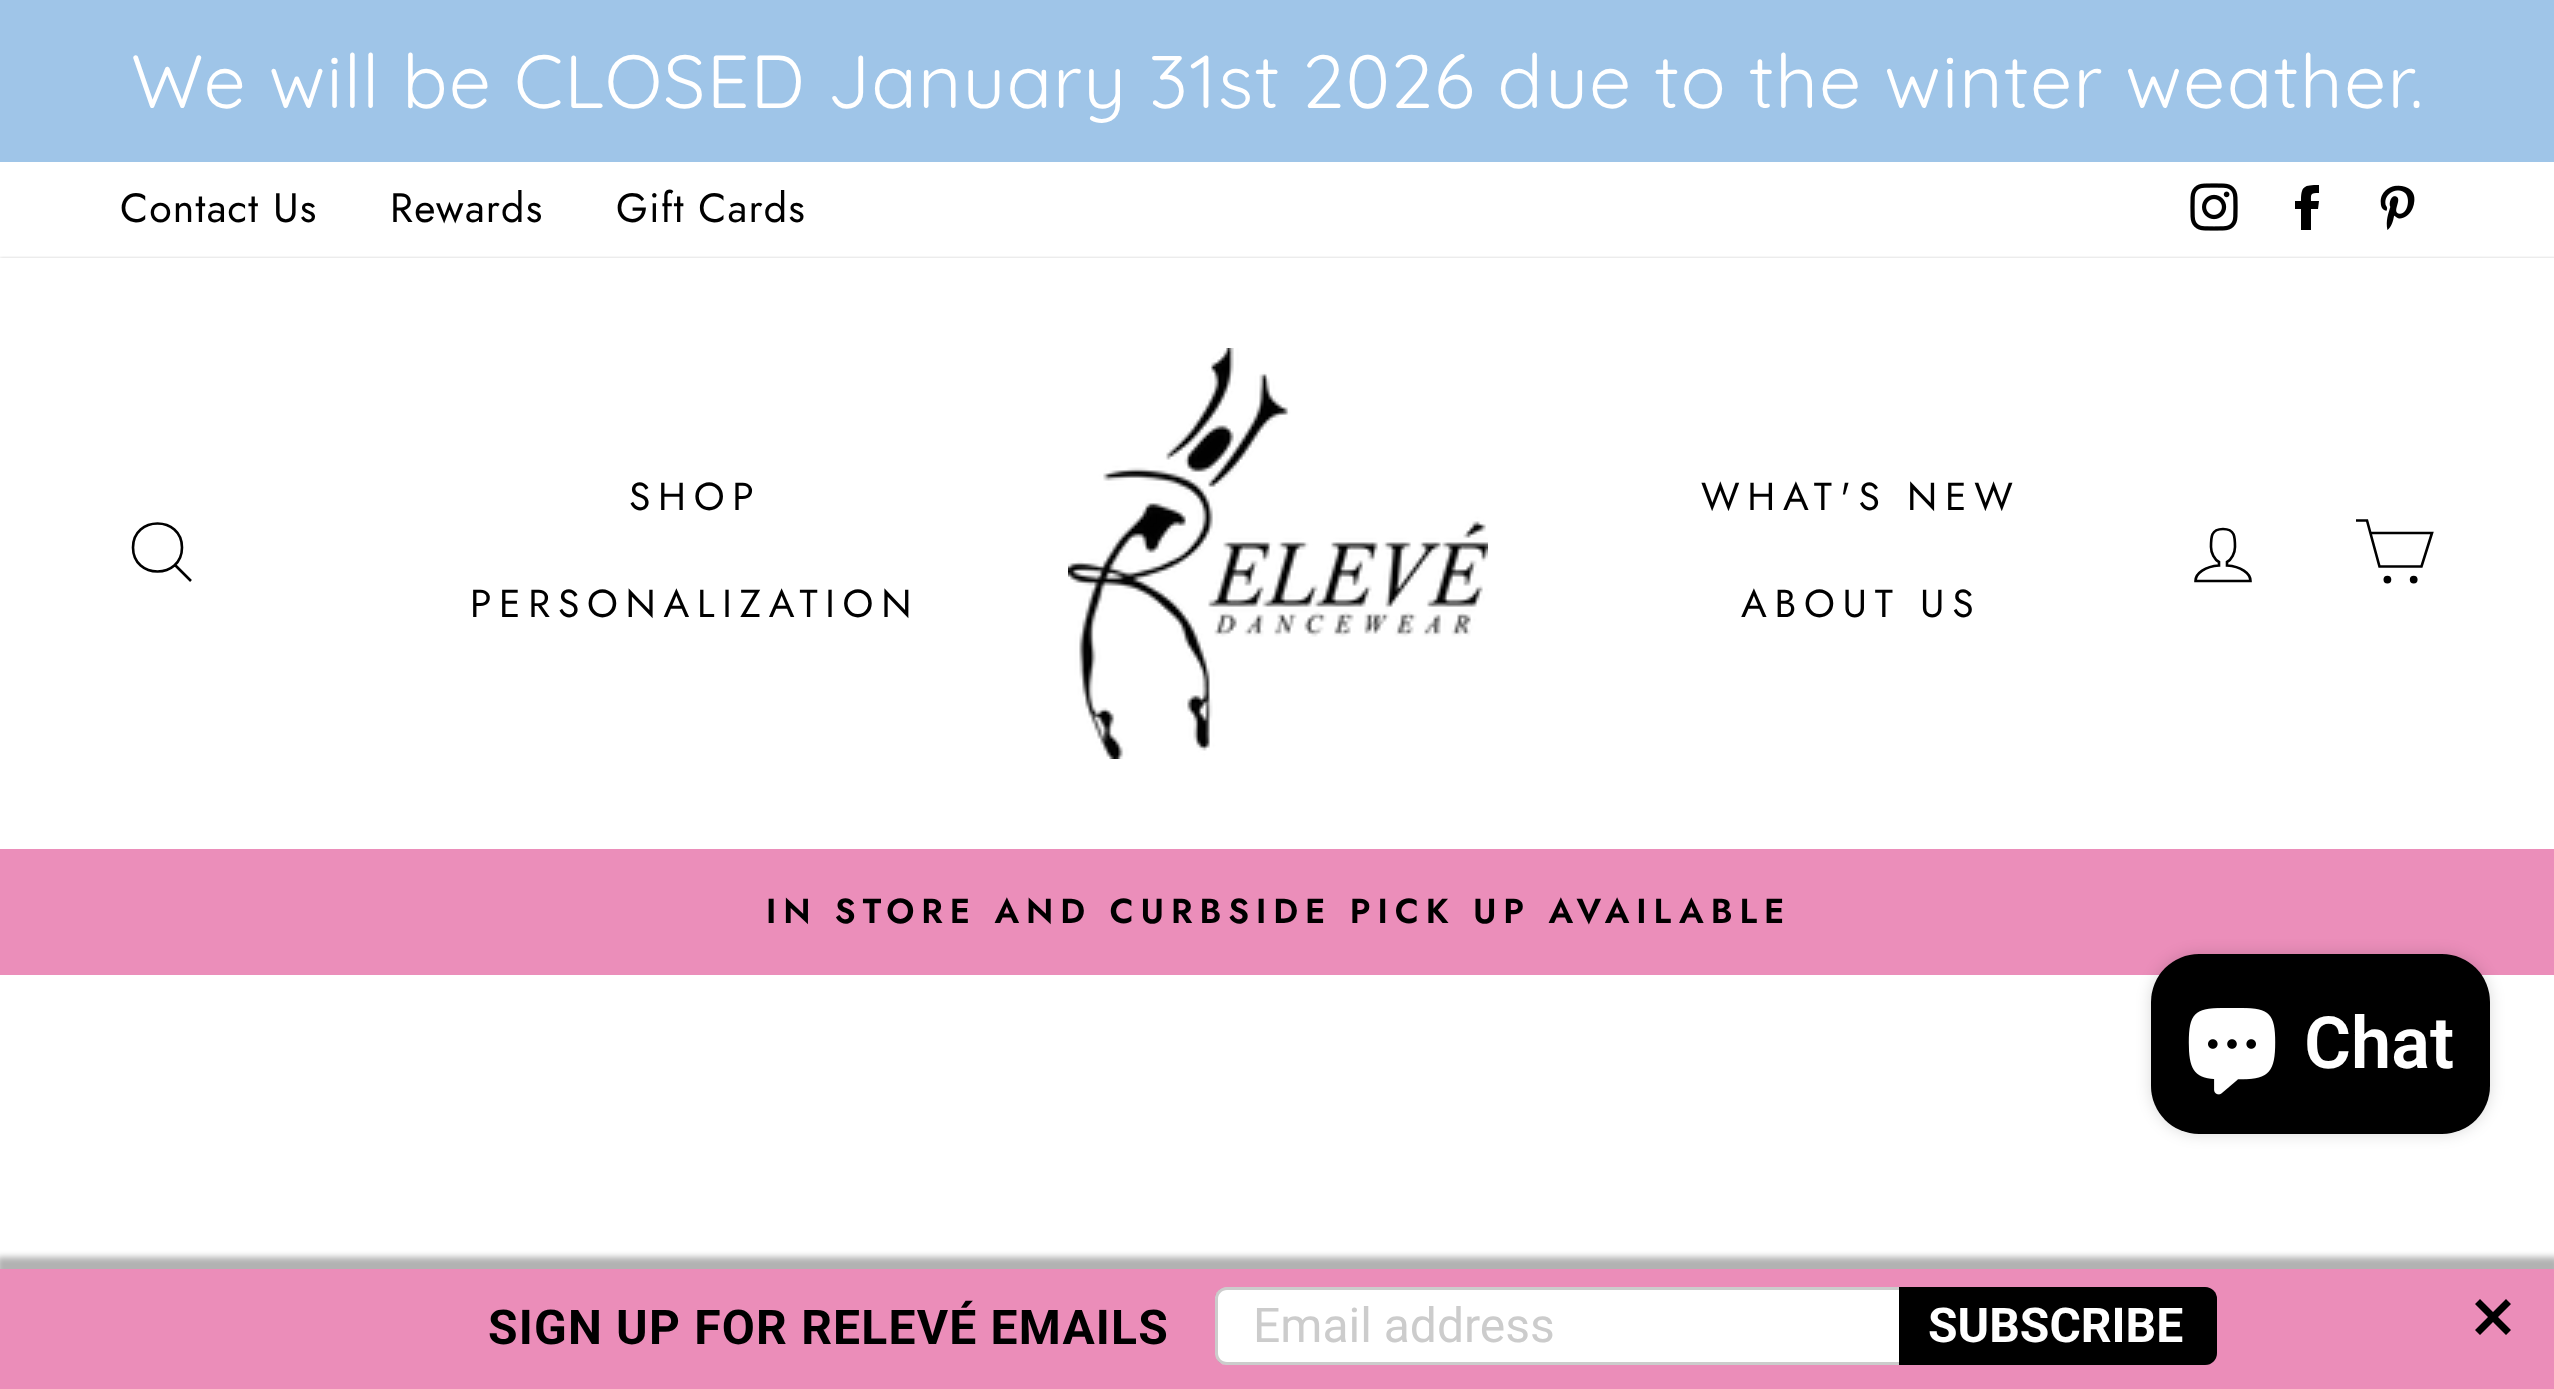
<!DOCTYPE html>
<meta charset="utf-8">
<style>body { margin: 0 } canvas { display: block }</style>
<canvas id="canvas" width="2554" height="1389"></canvas>
<script type="module">
  const canvas = document.getElementById("canvas");
  const g = canvas.getContext("2d");
  g.miterLimit = 4;
  g.fontKerning = "normal";
  function drawText(s, x, y, [font, color]) {
    g.font = font;
    g.fillStyle = color;
    g.fillText(s, x, y);
  }
  function fillBox(x, y, w, h, color) {
    g.fillStyle = color;
    g.fillRect(x, y, w, h);
  }
  function fillRounded(x, y, w, h, r, color) {
    g.fillStyle = color;
    g.beginPath();
    g.roundRect(x, y, w, h, r);
    g.fill();
  }
  async function drawPicture(src, x, y, w, h) {
    const img = new Image();
    img.src = src;
    await img.decode();
    g.drawImage(img, x, y, w, h);
  }

  const s1 = ["75px Quicksand", "#FFFFFF"];
  const s2 = ["41px Jost", "#000000"];
  const s3 = ["39px Jost", "#000000"];
  const s4 = ["600 34.7px Jost", "#000000"];
  const s5 = ["600 72px Roboto", "#FFFFFF"];
  const s6 = ["bold 48px Roboto", "#000000"];
  const s7 = ["48px Roboto", "#CCCCCC"];
  const s8 = ["bold 48px Roboto", "#FFFFFF"];

  fillBox(0, 0, 2554, 1389, "#FFFFFF");
  fillBox(0, 0, 2554, 162, "#9FC5E8");
  g.letterSpacing = "1.2px";
  drawText("We will be CLOSED January 31st 2026 due to the winter weather.", 131, 108, s1);
  drawText("Contact Us", 120, 222, s2);
  drawText("Rewards", 390, 222, s2);
  drawText("Gift Cards", 616, 222, s2);
  await drawPicture("pic1.png", 2190, 183, 48, 48);
  g.beginPath();
  g.moveTo(2311, 230);
  g.lineTo(2311, 209);
  g.lineTo(2318, 209);
  g.lineTo(2319, 201);
  g.lineTo(2311, 201);
  g.bezierCurveTo(2311, 194, 2310, 193, 2319, 193);
  g.lineTo(2319, 185);
  g.bezierCurveTo(2304, 185, 2301, 186, 2301, 201);
  g.lineTo(2295, 201);
  g.lineTo(2295, 209);
  g.lineTo(2301, 209);
  g.lineTo(2301, 230);
  g.closePath();
  g.fill();
  await drawPicture("pic2.png", 2380, 185, 35, 45);
  g.save();
  g.beginPath();
  g.rect(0, 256, 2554, 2);
  g.clip();
  g.fillStyle = "rgba(0, 0, 0, 0.2)";
  g.filter = "blur(1.5px)";
  g.beginPath();
  g.rect(0, 258, 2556, 591);
  g.fill();
  g.filter = "none";
  g.restore();
  g.beginPath();
  g.moveTo(182, 547.5);
  g.bezierCurveTo(182, 579.5, 133, 579.5, 133, 547.5);
  g.bezierCurveTo(133, 515.5, 182, 515.5, 182, 547.5);
  g.closePath();
  g.moveTo(191, 581);
  g.lineTo(175, 565);
  g.strokeStyle = "#000000";
  g.lineWidth = 2.6;
  g.stroke();
  g.letterSpacing = "7.75px";
  drawText("SHOP", 629, 510, s3);
  drawText("PERSONALIZATION", 470, 617, s3);
  await drawPicture("pic3.png", 1068, 348, 420, 411);
  drawText("WHAT'S NEW", 1701, 510, s3);
  drawText("ABOUT US", 1741, 617, s3);
  g.beginPath();
  g.moveTo(2227, 565.5);
  g.lineTo(2227, 562);
  g.bezierCurveTo(2231.5, 559.5, 2235, 553, 2235, 547);
  g.bezierCurveTo(2235, 537, 2235, 529, 2223, 529);
  g.bezierCurveTo(2211, 529, 2211, 537, 2211, 547);
  g.bezierCurveTo(2211, 553, 2214.5, 559.5, 2219, 562);
  g.lineTo(2219, 565.5);
  g.bezierCurveTo(2205.5, 566.5, 2195.5, 573, 2195.5, 581);
  g.lineTo(2250.5, 581);
  g.bezierCurveTo(2250.5, 573, 2240.5, 566.5, 2227, 565.5);
  g.closePath();
  g.stroke();
  g.beginPath();
  g.moveTo(2370.5, 533);
  g.lineTo(2432, 533);
  g.lineTo(2421.5, 566.5);
  g.lineTo(2379.5, 566.5);
  g.lineTo(2367, 520.5);
  g.lineTo(2356, 520.5);
  g.stroke();
  g.beginPath();
  g.arc(2387.4, 579.6, 2.6, 0, Math.PI * 2);
  g.fill();
  g.stroke();
  g.beginPath();
  g.arc(2413.7, 579.6, 2.6, 0, Math.PI * 2);
  g.fill();
  g.stroke();
  fillBox(0, 849, 2554, 126, "#EB8EBA");
  g.letterSpacing = "6.95px";
  drawText("IN STORE AND CURBSIDE PICK UP AVAILABLE", 766, 923, s4);
  g.fillStyle = "rgba(0, 0, 0, 0.15)";
  g.filter = "blur(7.5px)";
  g.beginPath();
  g.roundRect(2151, 954, 339, 180, 48);
  g.fill();
  g.filter = "none";
  fillRounded(2151, 954, 339, 180, 48, "#000000");
  await drawPicture("pic4.png", 2188, 1008, 88, 87);
  g.letterSpacing = "0px";
  drawText("Chat", 2304, 1068, s5);
  g.fillStyle = "rgba(0, 0, 0, 0.3)";
  g.filter = "blur(3px)";
  g.beginPath();
  g.rect(-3, 1257, 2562, 126);
  g.fill();
  g.filter = "none";
  fillBox(0, 1269, 2554, 120, "#EB8DB9");
  g.letterSpacing = "1.2px";
  drawText("SIGN UP FOR RELEVÉ EMAILS", 488, 1344, s6);
  g.fillStyle = "#FFFFFF";
  g.beginPath();
  g.roundRect(1215, 1287, 684, 78, [12, 0, 0, 12]);
  g.fill();
  g.fillStyle = "rgba(0, 0, 0, 0.2)";
  g.beginPath();
  g.moveTo(1227, 1287);
  g.lineTo(1899, 1287);
  g.lineTo(1899, 1365);
  g.lineTo(1227, 1365);
  g.bezierCurveTo(1220, 1365, 1215, 1360, 1215, 1353);
  g.lineTo(1215, 1299);
  g.bezierCurveTo(1215, 1292, 1220, 1287, 1227, 1287);
  g.closePath();
  g.moveTo(1227, 1290);
  g.lineTo(1899, 1290);
  g.lineTo(1899, 1362);
  g.lineTo(1227, 1362);
  g.bezierCurveTo(1222, 1362, 1218, 1358, 1218, 1353);
  g.lineTo(1218, 1299);
  g.bezierCurveTo(1218, 1294, 1222, 1290, 1227, 1290);
  g.closePath();
  g.fill("evenodd");
  g.letterSpacing = "0px";
  drawText("Email address", 1253, 1342, s7);
  g.fillStyle = "#000000";
  g.beginPath();
  g.roundRect(1899, 1287, 318, 78, [0, 12, 12, 0]);
  g.fill();
  g.fillStyle = "rgba(0, 0, 0, 0.2)";
  g.beginPath();
  g.moveTo(1899, 1287);
  g.lineTo(2205, 1287);
  g.bezierCurveTo(2212, 1287, 2217, 1292, 2217, 1299);
  g.lineTo(2217, 1353);
  g.bezierCurveTo(2217, 1360, 2212, 1365, 2205, 1365);
  g.lineTo(1899, 1365);
  g.closePath();
  g.moveTo(1899, 1290);
  g.lineTo(2205, 1290);
  g.bezierCurveTo(2210, 1290, 2214, 1294, 2214, 1299);
  g.lineTo(2214, 1353);
  g.bezierCurveTo(2214, 1358, 2210, 1362, 2205, 1362);
  g.lineTo(1899, 1362);
  g.closePath();
  g.fill("evenodd");
  drawText("SUBSCRIBE", 1928, 1342, s8);
  g.fillStyle = "#000000";
  g.beginPath();
  g.moveTo(2511, 1304);
  g.lineTo(2506, 1299);
  g.lineTo(2493, 1312);
  g.lineTo(2480, 1299);
  g.lineTo(2475, 1304);
  g.lineTo(2488, 1317);
  g.lineTo(2475, 1330);
  g.lineTo(2480, 1335);
  g.lineTo(2493, 1322);
  g.lineTo(2506, 1335);
  g.lineTo(2511, 1330);
  g.lineTo(2498, 1317);
  g.closePath();
  g.fill();
</script>
